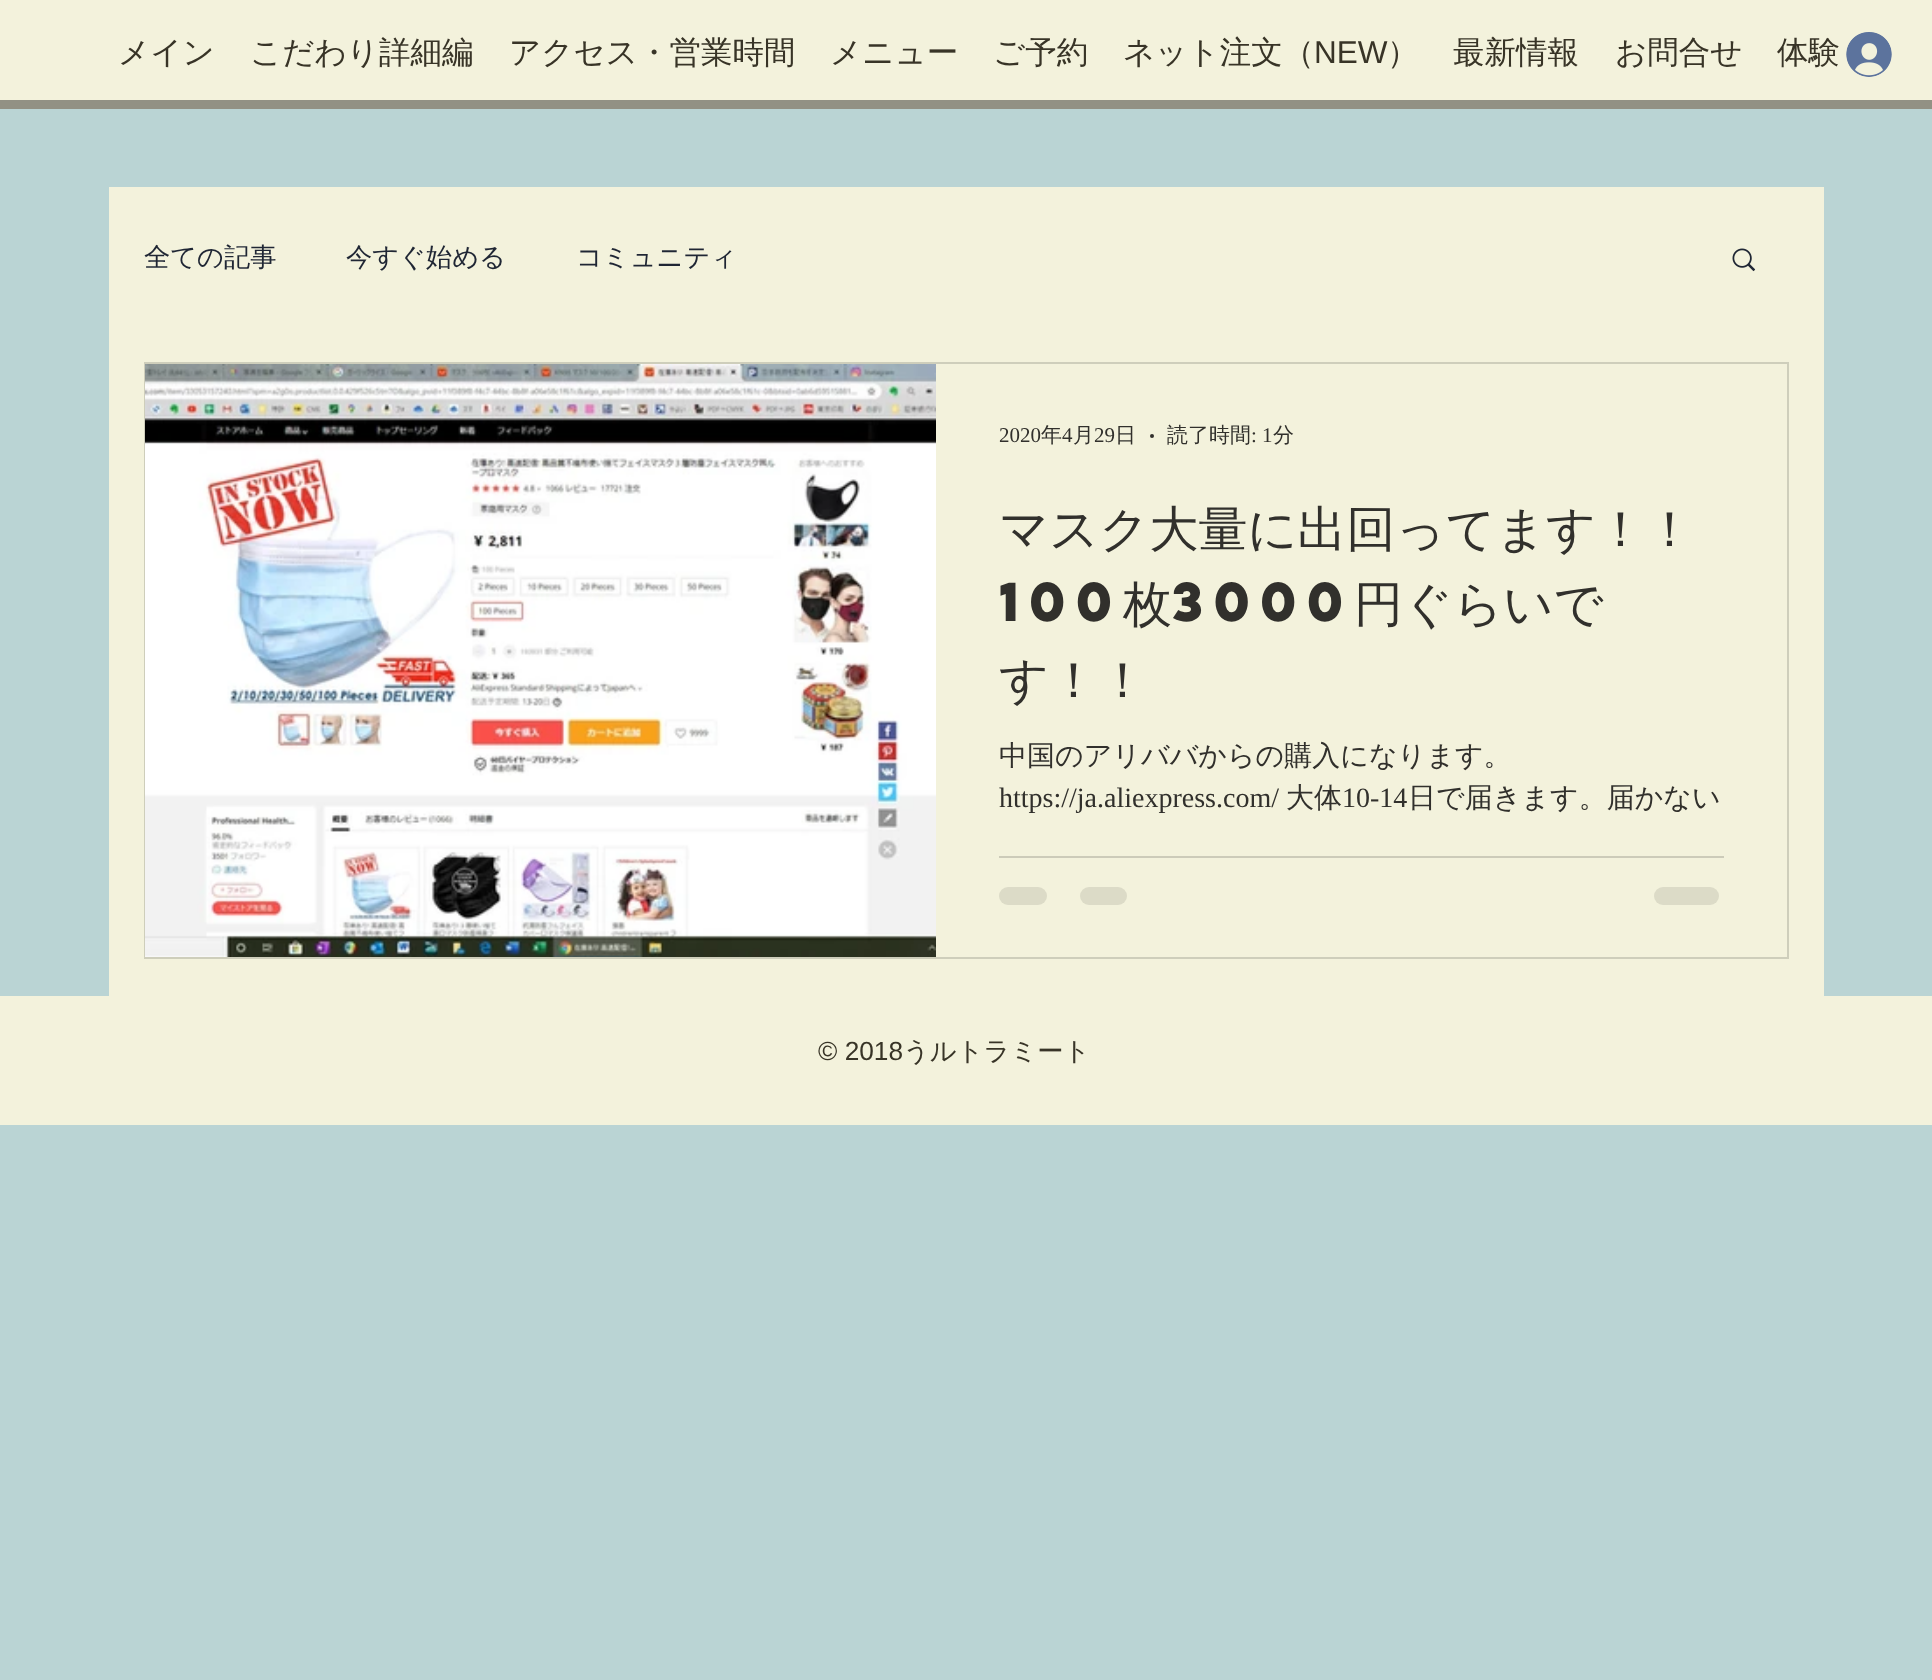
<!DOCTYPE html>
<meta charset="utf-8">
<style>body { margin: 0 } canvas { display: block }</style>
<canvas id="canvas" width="1932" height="1680"></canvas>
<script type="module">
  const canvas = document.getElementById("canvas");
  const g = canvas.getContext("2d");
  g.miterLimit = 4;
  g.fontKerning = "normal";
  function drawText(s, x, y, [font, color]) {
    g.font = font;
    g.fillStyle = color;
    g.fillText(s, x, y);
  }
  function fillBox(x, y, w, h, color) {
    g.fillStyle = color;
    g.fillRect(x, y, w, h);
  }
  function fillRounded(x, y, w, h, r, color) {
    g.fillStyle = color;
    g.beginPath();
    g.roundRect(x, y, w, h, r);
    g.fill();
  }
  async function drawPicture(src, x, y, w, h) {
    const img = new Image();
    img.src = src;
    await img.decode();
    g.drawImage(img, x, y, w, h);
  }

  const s1 = ["500 31.5px WenQuanYi Zen Hei", "#383427"];
  const s2 = ["31.5px Liberation Sans", "#383427"];
  const s3 = ["500 26.25px WenQuanYi Zen Hei", "#1F2634"];
  const s4 = ["21px Liberation Serif", "#31302C"];
  const s5 = ["500 21px WenQuanYi Zen Hei", "#31302C"];
  const s6 = ["500 49px WenQuanYi Zen Hei", "#31302C"];
  const s7 = ["bold 49px 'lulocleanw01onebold'", "#31302C"];
  const s8 = ["500 28px WenQuanYi Zen Hei", "#31302C"];
  const s9 = ["28px Liberation Serif", "#31302C"];
  const s10 = ["26.25px Liberation Sans", "#383427"];
  const s11 = ["500 26.25px WenQuanYi Zen Hei", "#383427"];

  fillBox(0, 0, 1932, 1680, "#BAD4D4");
  fillBox(0, 0, 1932, 100, "#F3F2DC");
  fillBox(0, 100, 1932, 9, "#929184");
  drawText("メイン", 118, 63, s1);
  drawText("こだわり詳細編", 250, 63, s1);
  drawText("アクセス・営業時間", 509, 63, s1);
  drawText("メニュー", 830, 63, s1);
  drawText("ご予約", 993, 63, s1);
  drawText("ネット注文（", 1123, 63, s1);
  drawText("NEW", 1314, 63, s2);
  drawText("）", 1387, 63, s1);
  drawText("最新情報", 1453, 63, s1);
  drawText("お問合せ", 1615, 63, s1);
  drawText("体験", 1777, 63, s1);
  await drawPicture("pic1.png", 1846, 32, 46, 45);
  fillBox(109, 187, 1715, 809, "#F3F2DC");
  drawText("全ての記事", 144, 266, s3);
  drawText("今すぐ始める", 346, 266, s3);
  drawText("コミュニティ", 576, 266, s3);
  await drawPicture("pic2.png", 1732, 248, 24, 24);
  g.strokeStyle = "#CECEBB";
  g.lineWidth = 2;
  g.strokeRect(145, 363, 1643, 595);
  await drawPicture("pic3.png", 145, 364, 791, 593);
  drawText("2020", 999, 442, s4);
  drawText("年", 1041, 442, s5);
  drawText("4", 1062, 442, s4);
  drawText("月", 1073, 442, s5);
  drawText("29", 1094, 442, s4);
  drawText("日", 1115, 442, s5);
  g.beginPath();
  g.arc(1152, 436, 2, 0, Math.PI * 2);
  g.fill();
  drawText("読了時間", 1167, 442, s5);
  drawText(": 1", 1251, 442, s4);
  drawText("分", 1273, 442, s5);
  drawText("マスク大量に出回ってます！！", 999, 546, s6);
  drawText("100", 999, 621, s7);
  drawText("枚", 1123, 621, s6);
  drawText("3000", 1172, 621, s7);
  drawText("円ぐらいで", 1354, 621, s6);
  drawText("す！！", 999, 697, s6);
  drawText("中国のアリババからの購入になります。", 999, 765, s8);
  drawText("https://ja.aliexpress.com/", 999, 807, s9);
  drawText("大体", 1286, 807, s8);
  drawText("10-14", 1342, 807, s9);
  drawText("日で届きます。届かない", 1408, 807, s8);
  fillBox(999, 856, 725, 2, "#CCCBB9");
  fillRounded(999, 887, 48, 18, 9, "#DCDBC7");
  fillRounded(1080, 887, 47, 18, 9, "#DCDBC7");
  fillRounded(1654, 887, 65, 18, 9, "#DCDBC7");
  fillBox(0, 996, 1932, 129, "#F3F2DC");
  drawText("© 2018", 818, 1060, s10);
  drawText("うルトラミート", 903, 1060, s11);
</script>
